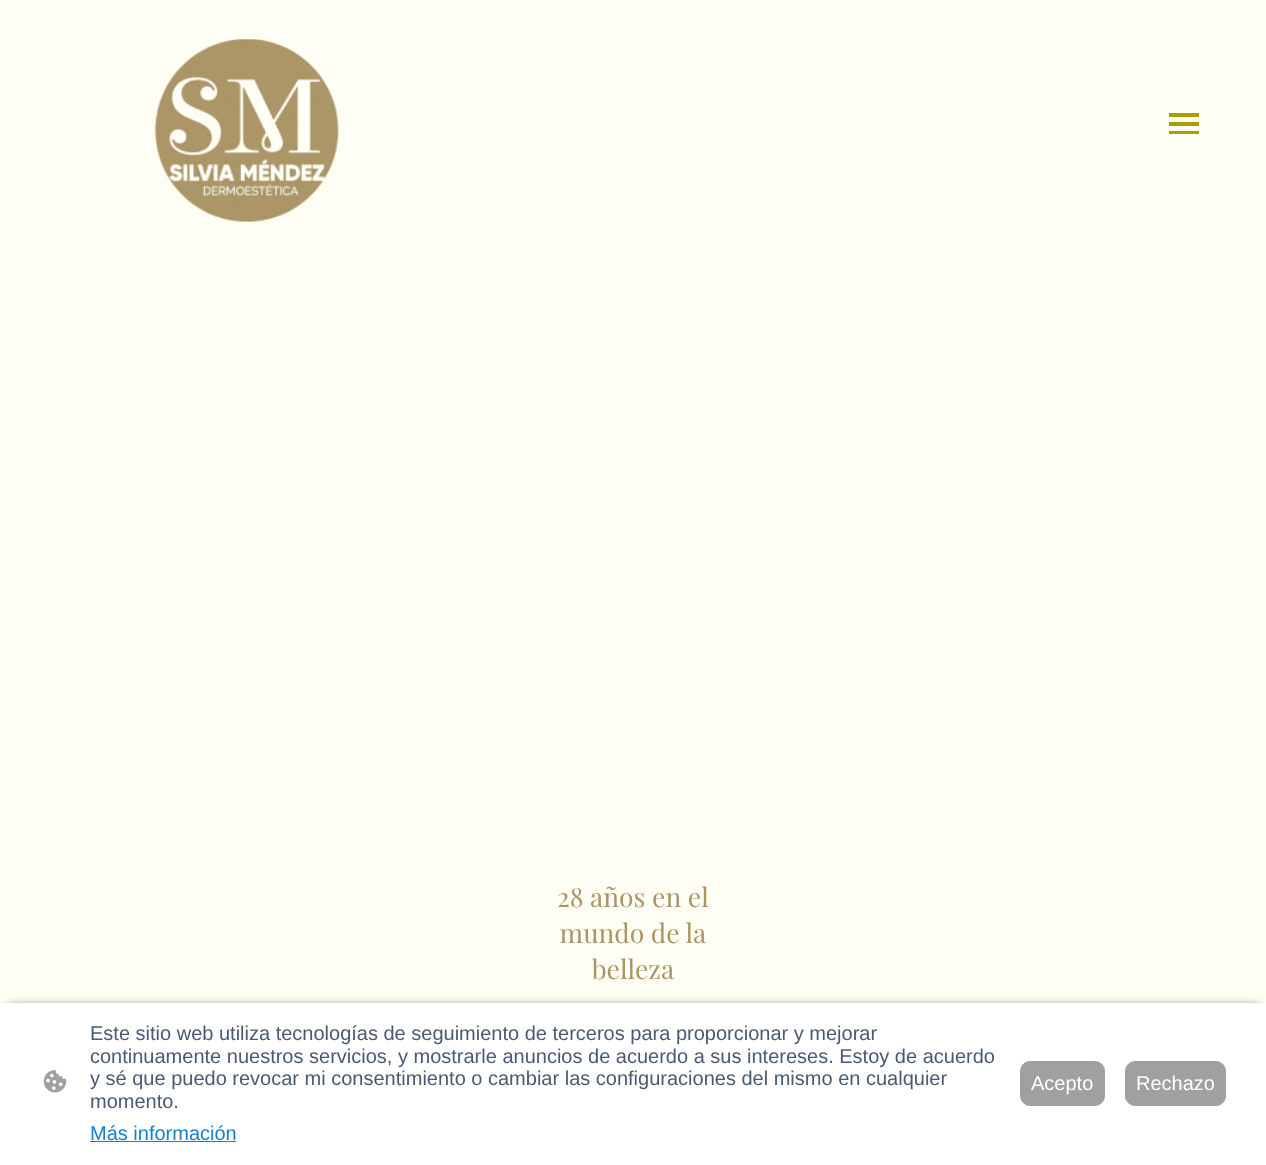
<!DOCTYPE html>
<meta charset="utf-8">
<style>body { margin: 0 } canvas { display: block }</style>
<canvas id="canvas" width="1266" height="1165"></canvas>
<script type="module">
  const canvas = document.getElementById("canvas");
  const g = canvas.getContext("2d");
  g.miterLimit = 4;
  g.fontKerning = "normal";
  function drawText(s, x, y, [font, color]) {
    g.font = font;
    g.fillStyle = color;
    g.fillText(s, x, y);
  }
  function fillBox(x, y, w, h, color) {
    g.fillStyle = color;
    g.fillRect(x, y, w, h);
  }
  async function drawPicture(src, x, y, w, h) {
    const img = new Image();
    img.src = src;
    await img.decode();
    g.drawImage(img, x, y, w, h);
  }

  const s1 = ["20px Liberation Sans", "#4A5A73"];
  const s2 = ["20px Liberation Sans", "#1183D1"];
  const s3 = ["20px Liberation Sans", "#FFFFFF"];

  fillBox(0, 0, 1266, 1165, "#FFFEF4");
  await drawPicture("pic1.png", 154, 38, 185, 184);
  fillBox(1169, 113, 30, 4, "#A7A000");
  fillBox(1169, 122, 30, 4, "#A7A000");
  fillBox(1169, 131, 30, 3, "#A7A000");
  await drawPicture("pic2.png", 558, 886, 151, 94);
  g.fillStyle = "rgba(0, 0, 0, 0.63)";
  g.filter = "blur(5px)";
  g.beginPath();
  g.rect(8, 1006, 1251, 148);
  g.fill();
  g.filter = "none";
  fillBox(0, 1003, 1266, 162, "#FFFFFF");
  await drawPicture("pic3.png", 43, 1070, 24, 23);
  drawText("Este sitio web utiliza tecnologías de seguimiento de terceros para proporcionar y mejorar", 90, 1040, s1);
  drawText("continuamente nuestros servicios, y mostrarle anuncios de acuerdo a sus intereses. Estoy de acuerdo", 90, 1063, s1);
  drawText("y sé que puedo revocar mi consentimiento o cambiar las configuraciones del mismo en cualquier", 90, 1085, s1);
  drawText("momento.", 90, 1108, s1);
  drawText("Más información", 90, 1140, s2);
  fillBox(90, 1141, 146, 1, "#1183D1");
  g.fillStyle = "#A0A0A0";
  g.beginPath();
  g.roundRect(1020.5, 1061.5, 84, 44, 9.5);
  g.fill();
  g.strokeStyle = "#A0A0A0";
  g.stroke();
  drawText("Acepto", 1031, 1090, s3);
  g.fillStyle = "#A0A0A0";
  g.beginPath();
  g.roundRect(1125.5, 1061.5, 100, 44, 9.5);
  g.fill();
  g.stroke();
  drawText("Rechazo", 1136, 1090, s3);
</script>
